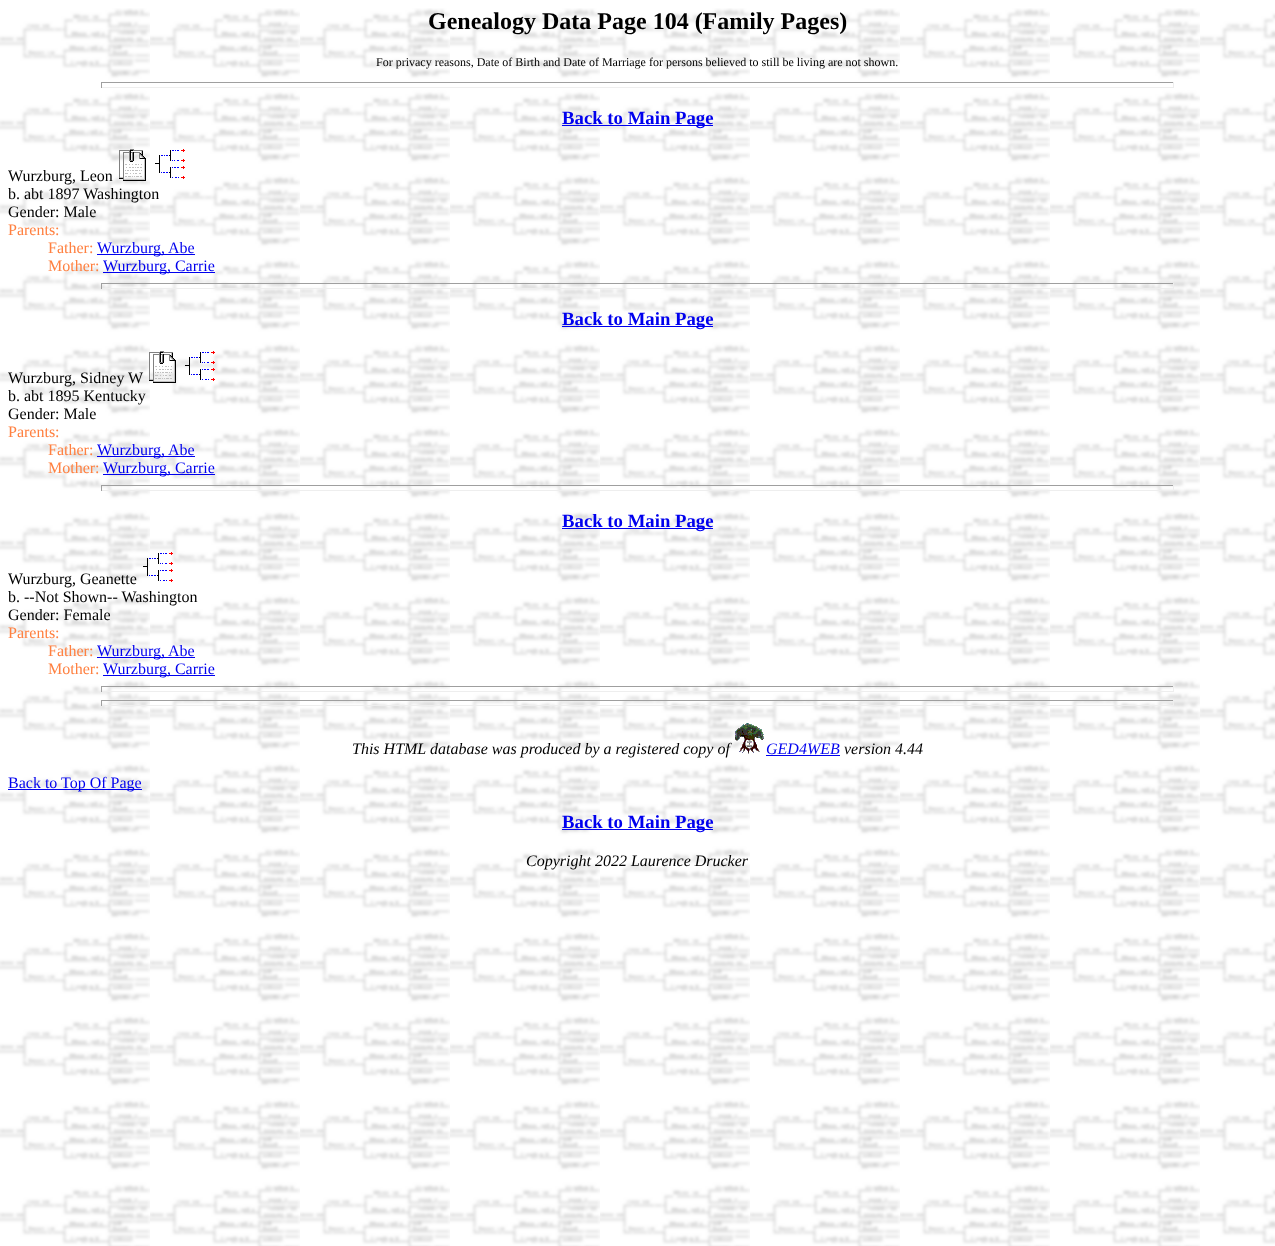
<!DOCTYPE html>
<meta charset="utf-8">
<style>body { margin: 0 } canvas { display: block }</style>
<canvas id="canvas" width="1275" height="1246"></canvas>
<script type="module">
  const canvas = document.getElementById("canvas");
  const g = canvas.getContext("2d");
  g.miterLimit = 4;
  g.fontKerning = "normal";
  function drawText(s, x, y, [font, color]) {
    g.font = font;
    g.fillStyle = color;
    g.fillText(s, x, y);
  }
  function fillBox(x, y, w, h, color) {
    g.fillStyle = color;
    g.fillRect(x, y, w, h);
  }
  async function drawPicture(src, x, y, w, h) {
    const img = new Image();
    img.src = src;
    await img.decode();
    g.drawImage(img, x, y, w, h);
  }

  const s1 = ["bold 24px Liberation Serif", "#000000"];
  const s2 = ["12px Liberation Serif", "#000000"];
  const s3 = ["bold 18.75px Liberation Serif", "#0000EE"];
  const s4 = ["16px Liberation Serif", "#000000"];
  const s5 = ["16px Liberation Serif", "#FF8040"];
  const s6 = ["16px Liberation Serif", "#0000EE"];
  const s7 = ["italic 16px Liberation Serif", "#000000"];
  const s8 = ["italic 16px Liberation Serif", "#0000EE"];

  fillBox(0, 0, 1275, 1246, "#FFFFFF");
  await drawPicture("pic1.png", 0, 8, 1275, 1238);
  drawText("Genealogy Data Page 104 (Family Pages)", 428, 29, s1);
  drawText("For privacy reasons, Date of Birth and Date of Marriage for persons believed to still be living are not shown.", 376, 66, s2);
  fillBox(101, 82, 1073, 1, "#9F9F9F");
  fillBox(1173, 82, 1, 6, "#EEEEEE");
  fillBox(101, 87, 1073, 1, "#EEEEEE");
  fillBox(101, 82, 1, 6, "#9F9F9F");
  fillBox(562, 125, 151, 1, "#0000EE");
  drawText("Back to Main Page", 562, 124, s3);
  drawText("Wurzburg, Leon", 8, 181, s4);
  await drawPicture("pic2.png", 119, 149, 27, 32);
  await drawPicture("pic3.png", 155, 149, 30, 30);
  drawText("b. abt 1897 Washington", 8, 199, s4);
  drawText("Gender: Male", 8, 217, s4);
  drawText("Parents:", 8, 235, s5);
  drawText("Father:", 48, 253, s5);
  fillBox(97, 254, 98, 1, "#0000EE");
  drawText("Wurzburg, Abe", 97, 253, s6);
  drawText("Mother:", 48, 271, s5);
  fillBox(103, 272, 112, 1, "#0000EE");
  drawText("Wurzburg, Carrie", 103, 271, s6);
  fillBox(101, 283, 1073, 1, "#9F9F9F");
  fillBox(1173, 283, 1, 6, "#EEEEEE");
  fillBox(101, 288, 1073, 1, "#EEEEEE");
  fillBox(101, 283, 1, 6, "#9F9F9F");
  fillBox(562, 326, 151, 1, "#0000EE");
  drawText("Back to Main Page", 562, 325, s3);
  drawText("Wurzburg, Sidney W", 8, 383, s4);
  await drawPicture("pic4.png", 149, 351, 27, 32);
  await drawPicture("pic5.png", 185, 351, 30, 30);
  drawText("b. abt 1895 Kentucky", 8, 401, s4);
  drawText("Gender: Male", 8, 419, s4);
  drawText("Parents:", 8, 437, s5);
  drawText("Father:", 48, 455, s5);
  fillBox(97, 456, 98, 1, "#0000EE");
  drawText("Wurzburg, Abe", 97, 455, s6);
  drawText("Mother:", 48, 473, s5);
  fillBox(103, 474, 112, 1, "#0000EE");
  drawText("Wurzburg, Carrie", 103, 473, s6);
  fillBox(101, 485, 1073, 1, "#9F9F9F");
  fillBox(1173, 485, 1, 6, "#EEEEEE");
  fillBox(101, 490, 1060, 1, "#EEEEEE");
  fillBox(101, 485, 1, 6, "#9F9F9F");
  fillBox(562, 528, 151, 1, "#0000EE");
  drawText("Back to Main Page", 562, 527, s3);
  drawText("Wurzburg, Geanette", 8, 584, s4);
  await drawPicture("pic6.png", 143, 552, 30, 30);
  drawText("b. --Not Shown-- Washington", 8, 602, s4);
  drawText("Gender: Female", 8, 620, s4);
  drawText("Parents:", 8, 638, s5);
  drawText("Father:", 48, 656, s5);
  fillBox(97, 657, 98, 1, "#0000EE");
  drawText("Wurzburg, Abe", 97, 656, s6);
  drawText("Mother:", 48, 674, s5);
  fillBox(103, 675, 112, 1, "#0000EE");
  drawText("Wurzburg, Carrie", 103, 674, s6);
  fillBox(101, 686, 1073, 1, "#9F9F9F");
  fillBox(1173, 686, 1, 6, "#EEEEEE");
  fillBox(101, 691, 1073, 1, "#EEEEEE");
  fillBox(101, 686, 1, 6, "#9F9F9F");
  fillBox(101, 700, 1073, 1, "#9F9F9F");
  fillBox(1173, 700, 1, 6, "#EEEEEE");
  fillBox(101, 705, 1073, 1, "#EEEEEE");
  fillBox(101, 700, 1, 6, "#9F9F9F");
  drawText("This HTML database was produced by a registered copy of", 352, 754, s7);
  await drawPicture("pic7.png", 735, 723, 29, 31);
  drawText("GED4WEB", 766, 754, s8);
  fillBox(766, 755, 74, 1, "#0000EE");
  drawText("version 4.44", 844, 754, s7);
  fillBox(8, 789, 134, 1, "#0000EE");
  drawText("Back to Top Of Page", 8, 788, s6);
  fillBox(562, 829, 151, 1, "#0000EE");
  drawText("Back to Main Page", 562, 828, s3);
  drawText("Copyright 2022 Laurence Drucker", 526, 866, s7);
</script>
